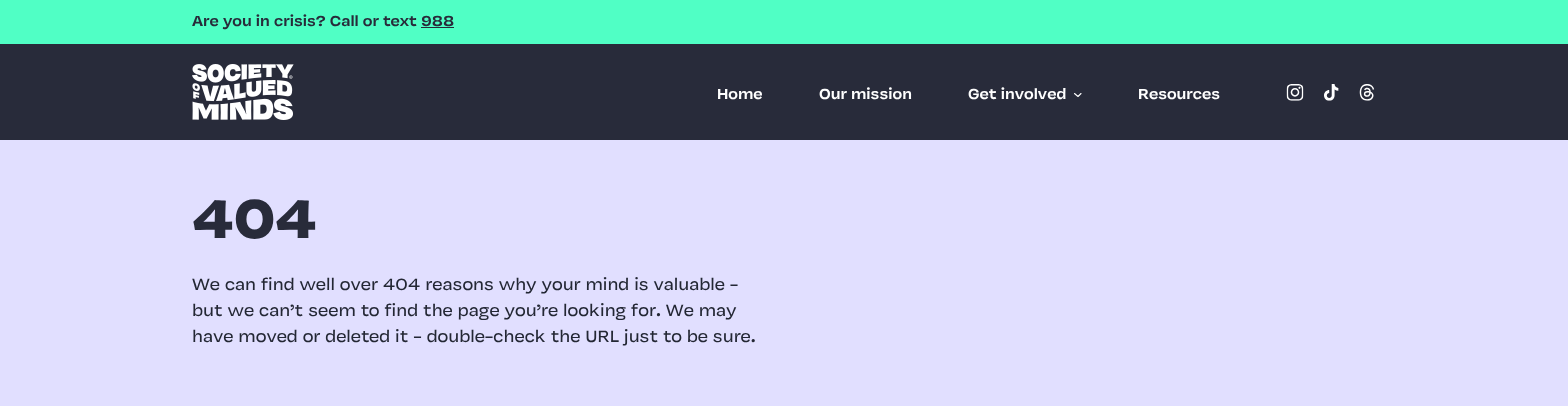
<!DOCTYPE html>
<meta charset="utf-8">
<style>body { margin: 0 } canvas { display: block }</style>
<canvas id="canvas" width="1568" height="406"></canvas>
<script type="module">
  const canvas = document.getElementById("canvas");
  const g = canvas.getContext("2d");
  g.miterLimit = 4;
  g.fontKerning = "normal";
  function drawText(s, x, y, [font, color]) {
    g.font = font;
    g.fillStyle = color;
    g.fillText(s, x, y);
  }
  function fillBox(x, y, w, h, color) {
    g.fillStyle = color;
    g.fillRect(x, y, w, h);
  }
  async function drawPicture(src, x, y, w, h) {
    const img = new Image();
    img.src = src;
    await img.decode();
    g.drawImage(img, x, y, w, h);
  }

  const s1 = ["500 16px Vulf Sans", "#282B3A"];
  const s2 = ["500 16px Vulf Sans", "#FFFFFF"];
  const s3 = ["bold 60px Vulf Sans", "#282B3A"];
  const s4 = ["18px Vulf Sans", "#232734"];

  fillBox(0, 0, 1568, 406, "#E1DFFF");
  fillBox(0, 44, 1568, 96, "#282B3A");
  fillBox(0, 0, 1568, 44, "#50FFC5");
  drawText("Are you in crisis? Call or text 988", 192, 26, s1);
  fillBox(421, 27, 33, 1, "#282B3A");
  await drawPicture("pic1.png", 192, 64, 102, 56);
  drawText("Home", 717, 99, s2);
  drawText("Our mission", 819, 99, s2);
  drawText("Get involved", 968, 99, s2);
  g.beginPath();
  g.moveTo(1081, 93.5);
  g.lineTo(1078, 96.5);
  g.lineTo(1074.5, 93.5);
  g.strokeStyle = "#FFFFFF";
  g.lineWidth = 1.1;
  g.lineCap = "round";
  g.lineJoin = "round";
  g.stroke();
  drawText("Resources", 1138, 99, s2);
  await drawPicture("pic2.png", 1286, 84, 18, 17);
  await drawPicture("pic3.png", 1324, 84, 15, 17);
  await drawPicture("pic4.png", 1359, 84, 16, 17);
  drawText("404", 192, 238, s3);
  drawText("We can find well over 404 reasons why your mind is valuable -", 192, 290, s4);
  drawText("but we can’t seem to find the page you’re looking for. We may", 192, 316, s4);
  drawText("have moved or deleted it - double-check the URL just to be sure.", 192, 342, s4);
</script>
